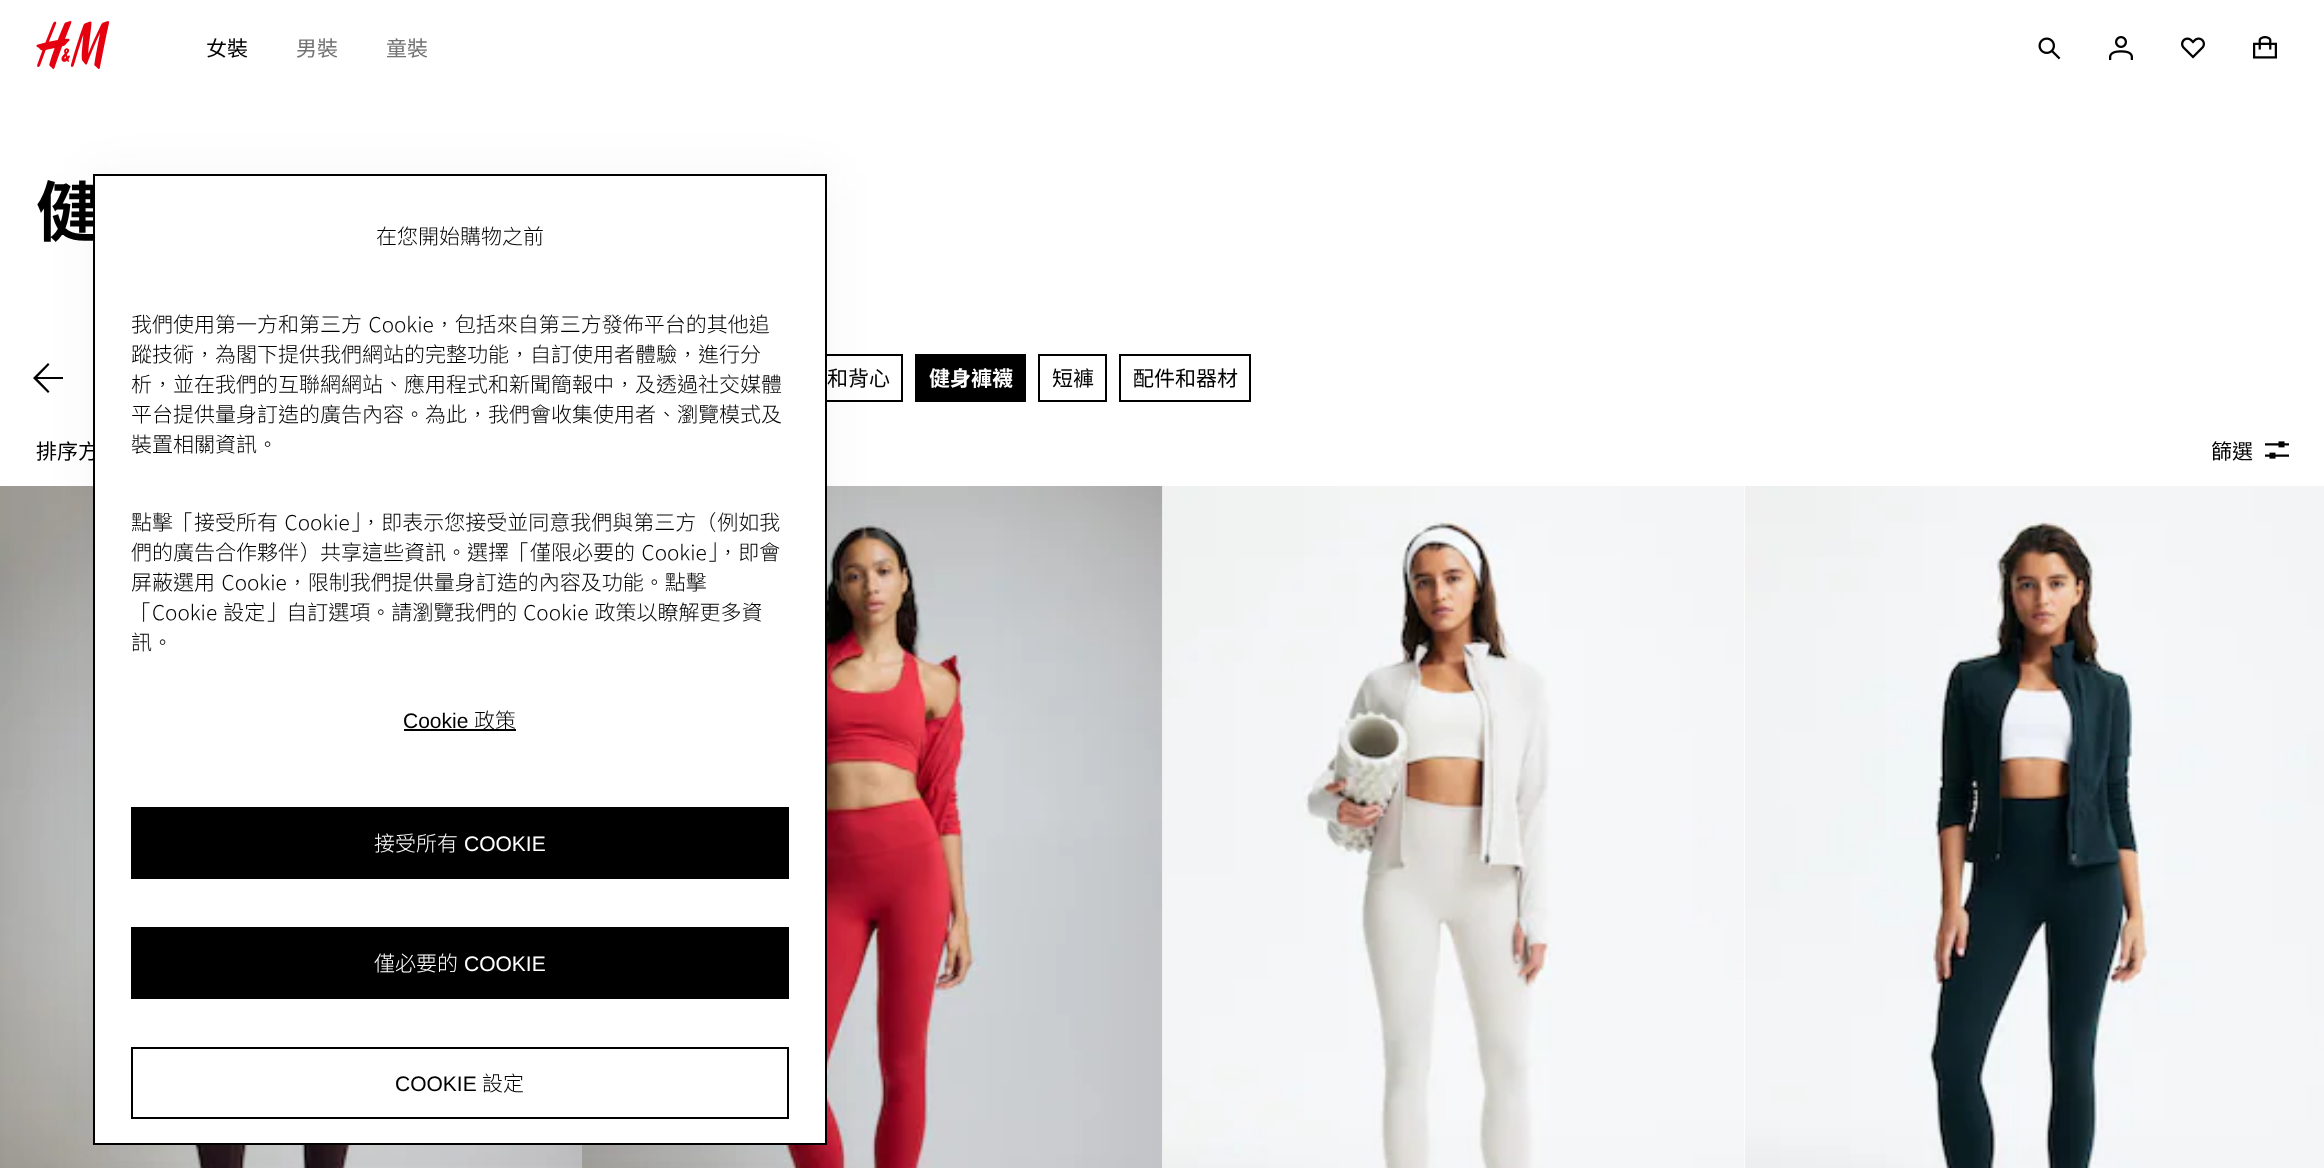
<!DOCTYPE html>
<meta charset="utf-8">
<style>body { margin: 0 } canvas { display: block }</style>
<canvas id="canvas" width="2324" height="1168"></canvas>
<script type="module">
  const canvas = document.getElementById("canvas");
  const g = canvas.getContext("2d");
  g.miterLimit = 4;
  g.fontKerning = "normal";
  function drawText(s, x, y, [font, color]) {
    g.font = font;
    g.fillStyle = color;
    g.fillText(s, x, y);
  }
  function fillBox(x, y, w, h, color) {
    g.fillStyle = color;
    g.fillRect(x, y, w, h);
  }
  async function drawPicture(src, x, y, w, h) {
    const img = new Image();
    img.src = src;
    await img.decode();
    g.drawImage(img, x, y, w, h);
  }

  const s1 = ["21px Noto Sans TC", "#000000"];
  const s2 = ["21px Noto Sans TC", "#737373"];
  const s3 = ["bold 66px Noto Sans TC", "#000000"];
  const s4 = ["bold 21px Noto Sans TC", "#FFFFFF"];
  const s5 = ["300 21px Chiron Hei HK", "#000000"];
  const s6 = ["21px Liberation Sans", "#000000"];
  const s7 = ["300 21px Chiron Hei HK", "#FFFFFF"];
  const s8 = ["21px Liberation Sans", "#FFFFFF"];

  fillBox(0, 0, 2324, 1168, "#FFFFFF");
  await drawPicture("pic1.png", 36, 21, 74, 48);
  drawText("女裝", 206, 56, s1);
  drawText("男裝", 296, 56, s2);
  drawText("童裝", 386, 56, s2);
  await drawPicture("pic2.png", 2038, 37, 23, 23);
  await drawPicture("pic3.png", 2109, 36, 24, 24);
  await drawPicture("pic4.png", 2181, 37, 24, 22);
  await drawPicture("pic5.png", 2253, 36, 24, 23);
  drawText("健", 36, 236, s3);
  g.beginPath();
  g.moveTo(37.5, 377);
  g.lineTo(49.5, 364.5);
  g.lineTo(48, 363);
  g.lineTo(33, 378);
  g.lineTo(48, 393);
  g.lineTo(49.5, 391.5);
  g.lineTo(37.5, 379);
  g.lineTo(63, 379);
  g.lineTo(63, 377);
  g.closePath();
  g.fill();
  g.strokeStyle = "#000000";
  g.lineWidth = 2;
  g.strokeRect(730, 355, 172, 46);
  drawText("和背心", 827, 386, s1);
  fillBox(915, 354, 111, 48, "#000000");
  drawText("健身褲襪", 929, 386, s4);
  g.strokeRect(1039, 355, 67, 46);
  drawText("短褲", 1052, 386, s1);
  g.strokeRect(1120, 355, 130, 46);
  drawText("配件和器材", 1133, 386, s1);
  drawText("排序方", 36, 459, s1);
  drawText("篩選", 2211, 459, s1);
  await drawPicture("pic6.png", 2265, 441, 24, 18);
  await drawPicture("pic7.png", 0, 486, 582, 682);
  await drawPicture("pic8.png", 582, 486, 581, 682);
  await drawPicture("pic9.png", 1163, 486, 581, 682);
  await drawPicture("pic10.png", 1744, 486, 580, 682);
  g.fillStyle = "rgba(34, 34, 34, 0.05)";
  g.filter = "blur(24px)";
  g.beginPath();
  g.rect(93, 174, 734, 971);
  g.fill();
  g.filter = "none";
  g.fillStyle = "#FFFFFF";
  g.beginPath();
  g.rect(94, 175, 732, 969);
  g.fill();
  g.stroke();
  drawText("在您開始購物之前", 376, 244, s5);
  g.wordSpacing = "2px";
  drawText("我們使用第一方和第三方 Cookie，包括來自第三方發佈平台的其他追", 131, 332, s5);
  g.wordSpacing = "0px";
  drawText("蹤技術，為閣下提供我們網站的完整功能，自訂使用者體驗，進行分", 131, 362, s5);
  drawText("析，並在我們的互聯網網站、應用程式和新聞簡報中，及透過社交媒體", 131, 392, s5);
  drawText("平台提供量身訂造的廣告內容。為此，我們會收集使用者、瀏覽模式及", 131, 422, s5);
  drawText("裝置相關資訊。", 131, 452, s5);
  g.wordSpacing = "2px";
  drawText("點擊「接受所有 Cookie」，即表示您接受並同意我們與第三方（例如我", 131, 530, s5);
  drawText("們的廣告合作夥伴）共享這些資訊。選擇「僅限必要的 Cookie」，即會", 131, 560, s5);
  drawText("屏蔽選用 Cookie，限制我們提供量身訂造的內容及功能。點擊", 131, 590, s5);
  g.wordSpacing = "1.5px";
  drawText("「Cookie 設定」自訂選項。請瀏覽我們的 Cookie 政策以瞭解更多資", 131, 620, s5);
  g.wordSpacing = "0px";
  drawText("訊。", 131, 650, s5);
  drawText("Cookie", 403, 728, s6);
  fillBox(404, 729, 112, 2, "#000000");
  drawText("政策", 474, 728, s5);
  fillBox(131, 807, 658, 72, "#000000");
  drawText("接受所有", 374, 851, s7);
  drawText("COOKIE", 464, 851, s8);
  fillBox(131, 927, 658, 72, "#000000");
  drawText("僅必要的", 374, 971, s7);
  drawText("COOKIE", 464, 971, s8);
  g.strokeRect(132, 1048, 656, 70);
  drawText("COOKIE", 395, 1091, s6);
  drawText("設定", 482, 1091, s5);
</script>
